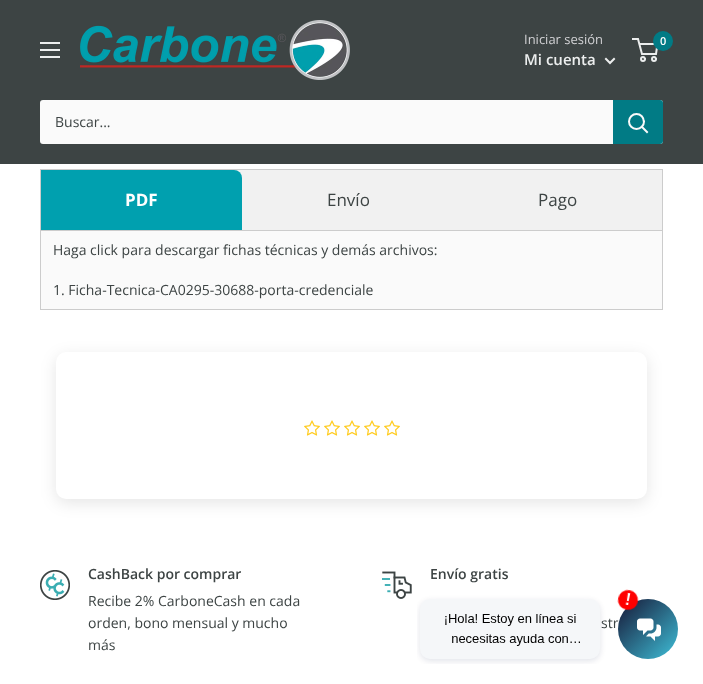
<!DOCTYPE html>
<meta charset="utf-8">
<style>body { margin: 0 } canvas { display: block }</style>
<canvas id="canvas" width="703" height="684"></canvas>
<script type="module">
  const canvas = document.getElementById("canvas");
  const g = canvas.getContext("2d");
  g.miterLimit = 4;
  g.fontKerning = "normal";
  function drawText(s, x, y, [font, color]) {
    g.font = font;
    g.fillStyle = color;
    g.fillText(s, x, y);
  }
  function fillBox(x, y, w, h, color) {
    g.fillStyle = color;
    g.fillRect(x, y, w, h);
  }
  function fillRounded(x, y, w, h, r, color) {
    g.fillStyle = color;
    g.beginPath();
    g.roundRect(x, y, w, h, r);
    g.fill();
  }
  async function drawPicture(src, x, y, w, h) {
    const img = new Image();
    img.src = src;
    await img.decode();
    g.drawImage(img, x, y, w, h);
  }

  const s1 = ["13px Open Sans", "#D1D1D4"];
  const s2 = ["600 15px Open Sans", "#ECEEEE"];
  const s3 = ["600 11px Open Sans", "#FFFFFF"];
  const s4 = ["14px Open Sans", "#3D4444"];
  const s5 = ["bold 17px Open Sans", "#FFFFFF"];
  const s6 = ["17px Open Sans", "#3D4444"];
  const s7 = ["600 14px Open Sans", "#3D4444"];

  fillBox(0, 0, 703, 684, "#FFFFFF");
  fillBox(0, 0, 703, 164, "#3D4444");
  await drawPicture("pic1.png", 40, 42, 20, 16);
  await drawPicture("pic2.png", 80, 20, 270, 60);
  drawText("Iniciar sesión", 524, 44, s1);
  drawText("Mi cuenta", 524, 65, s2);
  g.beginPath();
  g.moveTo(614, 59);
  g.lineTo(610, 63);
  g.lineTo(606, 59);
  g.strokeStyle = "#ECEEEE";
  g.lineWidth = 2;
  g.lineCap = "square";
  g.stroke();
  g.beginPath();
  g.arc(643, 59, 2, 0, Math.PI * 2);
  g.stroke();
  g.beginPath();
  g.arc(654, 59, 2, 0, Math.PI * 2);
  g.stroke();
  g.beginPath();
  g.moveTo(639.5, 44);
  g.lineTo(657.5, 44);
  g.lineTo(656, 54);
  g.lineTo(642, 54);
  g.lineTo(638, 39);
  g.lineTo(632, 39);
  g.lineCap = "butt";
  g.stroke();
  g.fillStyle = "#017B85";
  g.beginPath();
  g.arc(663, 41, 10, 0, Math.PI * 2);
  g.fill();
  drawText("0", 660, 45, s3);
  fillRounded(40, 100, 623, 44, 3, "#FAFAFA");
  drawText("Buscar...", 55, 127, s4);
  g.fillStyle = "#017B85";
  g.beginPath();
  g.roundRect(613, 100, 50, 44, [0, 3, 3, 0]);
  g.fill();
  g.beginPath();
  g.moveTo(647, 132);
  g.lineTo(642, 127);
  g.strokeStyle = "#FAFAFA";
  g.lineCap = "square";
  g.stroke();
  g.beginPath();
  g.arc(636.5, 121.5, 7.5, 0, Math.PI * 2);
  g.stroke();
  fillBox(41, 231, 621, 78, "#FAFAFA");
  fillBox(234, 170, 428, 60, "#F1F1F1");
  g.strokeStyle = "#CCCCCC";
  g.lineWidth = 1;
  g.strokeRect(40.5, 169.5, 622, 61);
  g.fillStyle = "#00A0AF";
  g.beginPath();
  g.roundRect(41, 170, 201, 60, [0, 8, 0, 0]);
  g.fill();
  drawText("PDF", 125, 206, s5);
  drawText("Envío", 327, 206, s6);
  drawText("Pago", 538, 206, s6);
  fillBox(662, 231, 1, 79, "#CCCCCC");
  fillBox(40, 309, 623, 1, "#CCCCCC");
  fillBox(40, 231, 1, 79, "#CCCCCC");
  drawText("Haga click para descargar fichas técnicas y demás archivos:", 53, 255, s4);
  drawText("1. Ficha-Tecnica-CA0295-30688-porta-credenciale", 53, 295, s4);
  g.fillStyle = "rgba(0, 0, 0, 0.1)";
  g.filter = "blur(8px)";
  g.beginPath();
  g.roundRect(56, 356, 591, 147, 10);
  g.fill();
  g.filter = "none";
  fillRounded(56, 352, 591, 147, 10, "#FFFFFF");
  await drawPicture("pic3.png", 304, 420, 16, 16);
  await drawPicture("pic3.png", 324, 420, 16, 16);
  await drawPicture("pic3.png", 344, 420, 16, 16);
  await drawPicture("pic3.png", 364, 420, 16, 16);
  await drawPicture("pic3.png", 384, 420, 16, 16);
  await drawPicture("pic4.png", 40, 570, 30, 30);
  drawText("CashBack por comprar", 88, 579, s7);
  drawText("Recibe 2% CarboneCash en cada", 88, 606, s4);
  drawText("orden, bono mensual y mucho", 88, 628, s4);
  drawText("más", 88, 650, s4);
  await drawPicture("pic5.png", 382, 571, 30, 28);
  drawText("Envío gratis", 430, 579, s7);
  drawText("str", 601, 628, s4);
  await drawPicture("pic6.png", 417, 589, 261, 75);
</script>
